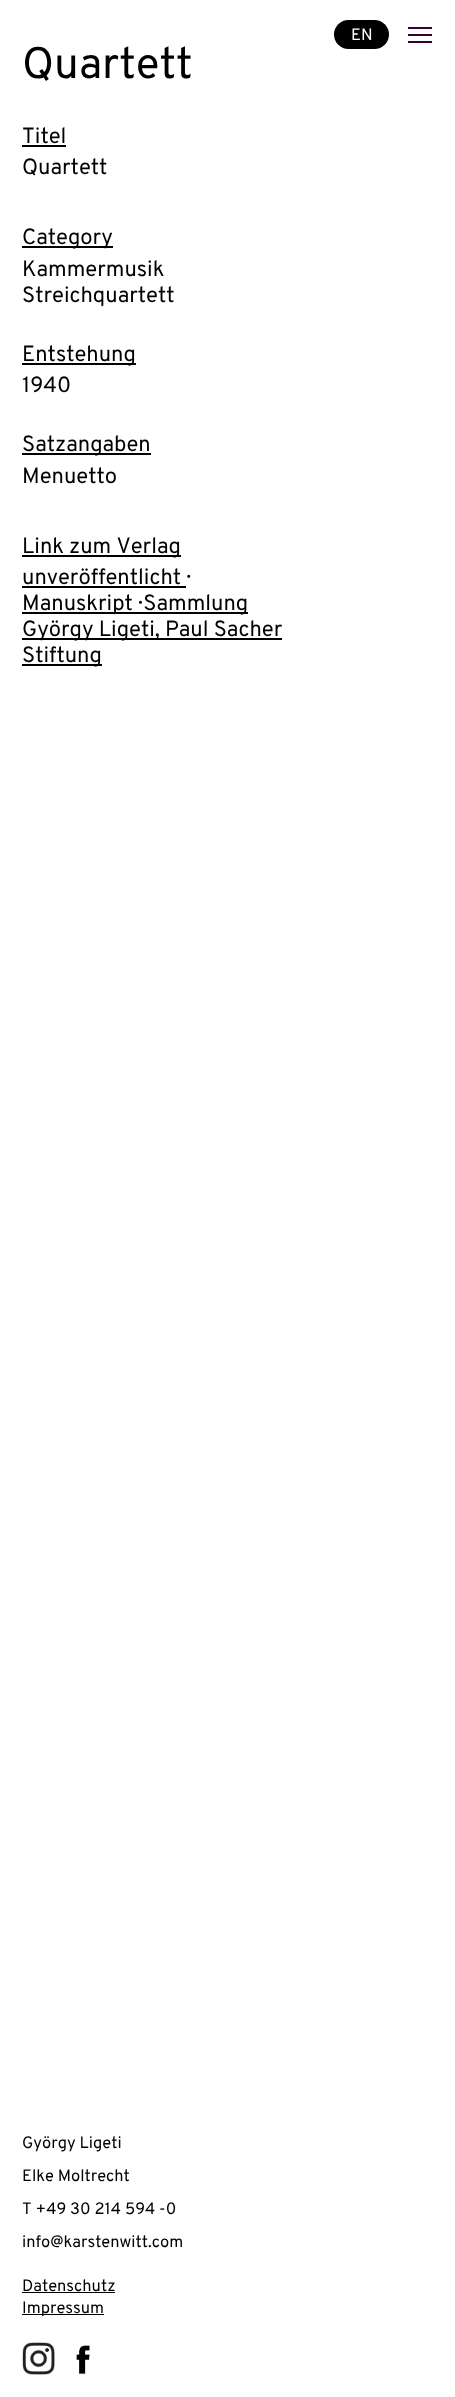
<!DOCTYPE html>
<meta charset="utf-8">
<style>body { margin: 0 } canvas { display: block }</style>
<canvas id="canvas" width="455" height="2397"></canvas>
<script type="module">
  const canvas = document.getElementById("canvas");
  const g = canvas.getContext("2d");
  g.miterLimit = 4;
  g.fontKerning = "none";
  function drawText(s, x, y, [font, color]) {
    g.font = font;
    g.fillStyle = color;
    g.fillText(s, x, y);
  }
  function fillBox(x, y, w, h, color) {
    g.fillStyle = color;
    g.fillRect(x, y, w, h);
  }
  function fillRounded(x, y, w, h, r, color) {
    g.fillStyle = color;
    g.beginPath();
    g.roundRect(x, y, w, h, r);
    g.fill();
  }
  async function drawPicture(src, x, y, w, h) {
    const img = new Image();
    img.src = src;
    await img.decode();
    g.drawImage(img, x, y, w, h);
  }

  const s1 = ["16.5px Overpass", "#FFFFFF"];
  const s2 = ["44px Overpass", "#000000"];
  const s3 = ["22px Overpass", "#000000"];
  const s4 = ["16.5px Overpass", "#000000"];

  fillBox(0, 0, 455, 2397, "#FFFFFF");
  fillRounded(334, 20, 55, 29, 14.5, "#000000");
  drawText("EN", 351, 40, s1);
  fillBox(408, 27, 24, 2, "#330133");
  fillBox(408, 34, 24, 2, "#330133");
  fillBox(408, 41, 24, 2, "#330133");
  drawText("Quartett", 22, 78, s2);
  drawText("Titel", 22, 143, s3);
  fillBox(22, 145, 44, 2, "#000000");
  drawText("Quartett", 22, 174, s3);
  fillBox(22, 246, 91, 2, "#000000");
  drawText("Category", 22, 244, s3);
  drawText("Kammermusik", 22, 276, s3);
  drawText("Streichquartett", 22, 302, s3);
  fillBox(22, 363, 114, 2, "#000000");
  drawText("Entstehung", 22, 361, s3);
  drawText("1940", 22, 392, s3);
  fillBox(22, 453, 129, 2, "#000000");
  drawText("Satzangaben", 22, 451, s3);
  drawText("Menuetto", 22, 483, s3);
  fillBox(22, 555, 159, 2, "#000000");
  drawText("Link zum Verlag", 22, 553, s3);
  drawText("unveröffentlicht ·", 22, 584, s3);
  fillBox(22, 586, 164, 2, "#000000");
  fillBox(22, 612, 226, 2, "#000000");
  drawText("Manuskript · Sammlung", 22, 610, s3);
  fillBox(22, 638, 260, 2, "#000000");
  drawText("György Ligeti, Paul Sacher", 22, 636, s3);
  fillBox(22, 664, 80, 2, "#000000");
  drawText("Stiftung", 22, 662, s3);
  drawText("György Ligeti", 22, 2148, s4);
  drawText("Elke Moltrecht", 22, 2181, s4);
  drawText("T +49 30 214 594 -0", 22, 2214, s4);
  drawText("info@karstenwitt.com", 22, 2247, s4);
  drawText("Datenschutz", 22, 2291, s4);
  fillBox(22, 2292, 93, 1, "#000000");
  fillBox(22, 2314, 82, 1, "#000000");
  drawText("Impressum", 22, 2313, s4);
  await drawPicture("pic1.png", 22, 2342, 33, 33);
  await drawPicture("pic2.png", 76, 2345, 14, 30);
</script>
